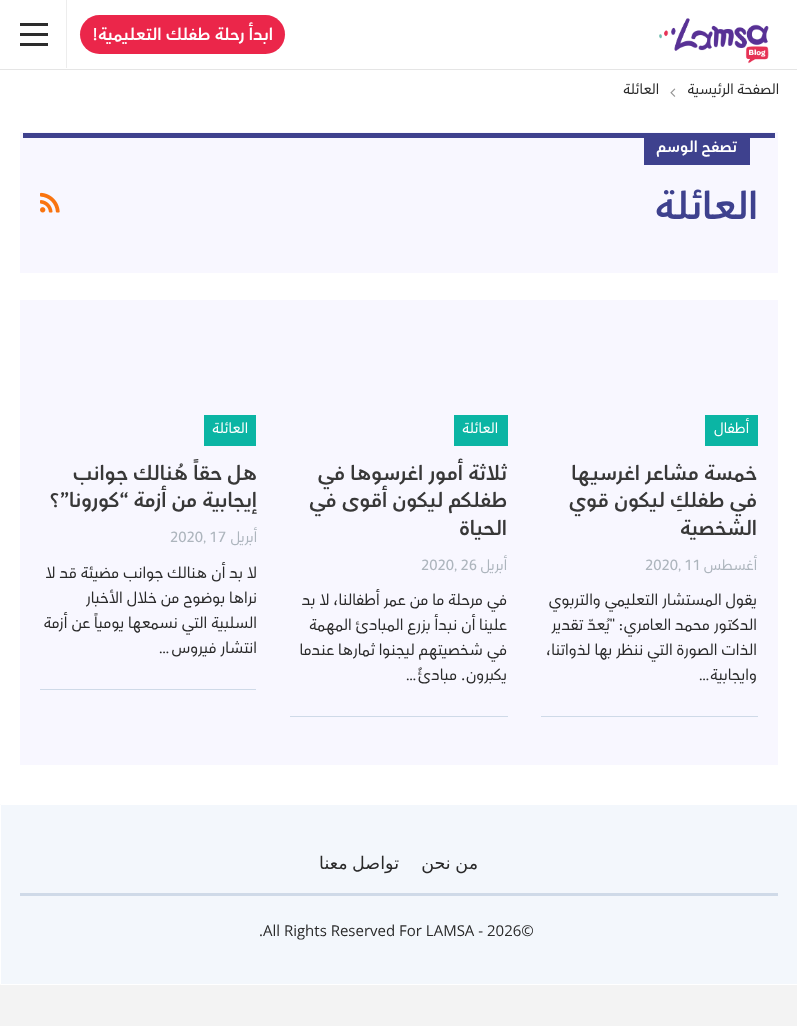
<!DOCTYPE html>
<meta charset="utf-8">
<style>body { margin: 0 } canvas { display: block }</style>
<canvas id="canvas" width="797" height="1026"></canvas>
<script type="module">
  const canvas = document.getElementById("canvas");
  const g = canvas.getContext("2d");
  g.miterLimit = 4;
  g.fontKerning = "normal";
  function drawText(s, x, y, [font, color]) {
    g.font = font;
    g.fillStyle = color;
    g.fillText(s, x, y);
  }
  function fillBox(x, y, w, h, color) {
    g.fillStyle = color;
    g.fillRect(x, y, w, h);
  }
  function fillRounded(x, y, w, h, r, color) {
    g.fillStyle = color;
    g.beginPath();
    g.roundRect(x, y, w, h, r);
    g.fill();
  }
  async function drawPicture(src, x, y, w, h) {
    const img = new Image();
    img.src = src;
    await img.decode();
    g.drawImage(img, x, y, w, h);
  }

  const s1 = ["bold 17.5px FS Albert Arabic", "#FFFFFF"];
  const s2 = ["15px FS Albert Arabic", "#292929"];
  const s3 = ["bold 16.25px FS Albert Arabic", "#FFFFFF"];
  const s4 = ["bold 40px FS Albert Arabic", "#3E418E"];
  const s5 = ["15px FS Albert Arabic", "#FFFFFF"];
  const s6 = ["bold 21.25px FS Albert Arabic", "#383838"];
  const s7 = ["15px FS Albert Arabic", "#ADB5BD"];
  const s8 = ["16.25px FS Albert Arabic", "#292929"];
  const s9 = ["17.5px DejaVu Sans", "#292929"];
  const s10 = ["15px Open Sans", "#292929"];

  fillBox(0, 0, 797, 1026, "#F3F3F3");
  fillBox(0, 0, 797, 69, "#FFFFFF");
  fillBox(0, 69, 797, 1, "#E5E5E5");
  await drawPicture("pic1.png", 659, 18, 110, 46);
  fillRounded(80, 15, 205, 39, 19.5, "#EB264A");
  g.direction = "rtl";
  drawText("ابدأ رحلة طفلك التعليمية!", 273, 40, s1);
  fillBox(66, 0, 1, 68, "#EDEDED");
  fillBox(20, 33, 28, 3, "#2C2C2C");
  fillBox(20, 23, 28, 3, "#2C2C2C");
  fillBox(20, 43, 28, 3, "#2C2C2C");
  fillBox(0, 70, 797, 734, "#FFFFFF");
  drawText("الصفحة الرئيسية", 779, 94, s2);
  await drawPicture("pic2.png", 670, 88, 6, 9);
  drawText("العائلة", 659, 94, s2);
  fillBox(20, 132, 758, 141, "#F8F7FF");
  fillBox(23, 133, 752, 5, "#3E418E");
  fillBox(644, 138, 106, 27, "#3E418E");
  drawText("تصفح الوسم", 737, 152, s3);
  drawText("العائلة", 758, 219, s4);
  await drawPicture("pic3.png", 40, 192, 20, 21);
  fillBox(20, 300, 758, 465, "#F8F7FF");
  fillBox(705, 415, 53, 31, "#0BB5A4");
  drawText("أطفال", 749, 433, s5);
  drawText("خمسة مشاعر اغرسيها", 757, 480, s6);
  drawText("في طفلكِ ليكون قوي", 757, 507, s6);
  drawText("الشخصية", 757, 535, s6);
  drawText("أغسطس", 757, 570, s7);
  g.direction = "ltr";
  drawText("2020, 11", 645, 570, s7);
  fillBox(541, 716, 217, 1, "#CFDAE8");
  g.direction = "rtl";
  drawText("يقول المستشار التعليمي والتربوي", 757, 605, s8);
  drawText("الدكتور محمد العامري: \"يُعدّ تقدير", 757, 630, s8);
  drawText("الذات الصورة التي ننظر بها لذواتنا،", 757, 655, s8);
  drawText("وايجابية", 757, 680, s8);
  g.direction = "ltr";
  drawText("…", 699, 680, s8);
  fillBox(454, 415, 54, 31, "#0BB5A4");
  g.direction = "rtl";
  drawText("العائلة", 498, 433, s5);
  drawText("ثلاثة أمور اغرسوها في", 507, 480, s6);
  drawText("طفلكم ليكون أقوى في", 507, 507, s6);
  drawText("الحياة", 507, 535, s6);
  drawText("أبريل", 507, 570, s7);
  g.direction = "ltr";
  drawText("2020, 26", 421, 570, s7);
  fillBox(290, 716, 218, 1, "#CFDAE8");
  g.direction = "rtl";
  drawText("في مرحلة ما من عمر أطفالنا، لا بد", 507, 605, s8);
  drawText("علينا أن نبدأ بزرع المبادئ المهمة", 507, 630, s8);
  drawText("في شخصيتهم ليجنوا ثمارها عندما", 507, 655, s8);
  drawText("يكبرون. مبادئٌ", 507, 680, s8);
  g.direction = "ltr";
  drawText("…", 406, 680, s8);
  fillBox(204, 415, 52, 31, "#0BB5A4");
  g.direction = "rtl";
  drawText("العائلة", 248, 433, s5);
  drawText("هل حقاً هُنالك جوانب", 257, 480, s6);
  drawText("إيجابية من أزمة “كورونا”؟", 257, 507, s6);
  drawText("أبريل", 257, 542, s7);
  g.direction = "ltr";
  drawText("2020, 17", 170, 542, s7);
  fillBox(40, 689, 216, 1, "#CFDAE8");
  g.direction = "rtl";
  drawText("لا بد أن هنالك جوانب مضيئة قد لا", 257, 578, s8);
  drawText("نراها بوضوح من خلال الأخبار", 257, 603, s8);
  drawText("السلبية التي نسمعها يومياً عن أزمة", 257, 628, s8);
  drawText("انتشار فيروس", 257, 653, s8);
  g.direction = "ltr";
  drawText("…", 159, 653, s8);
  g.fillStyle = "#F3F7FC";
  g.beginPath();
  g.rect(0.5, 804.5, 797, 180);
  g.fill();
  g.strokeStyle = "#FFFFFF";
  g.stroke();
  fillBox(20, 893, 758, 3, "#CFDAE8");
  g.wordSpacing = "-1px";
  g.direction = "rtl";
  drawText("من نحن", 478, 869, s9);
  drawText("تواصل معنا", 399, 869, s9);
  g.wordSpacing = "0px";
  g.direction = "ltr";
  drawText(".All Rights Reserved For LAMSA - 2026©", 259, 936, s10);
</script>
